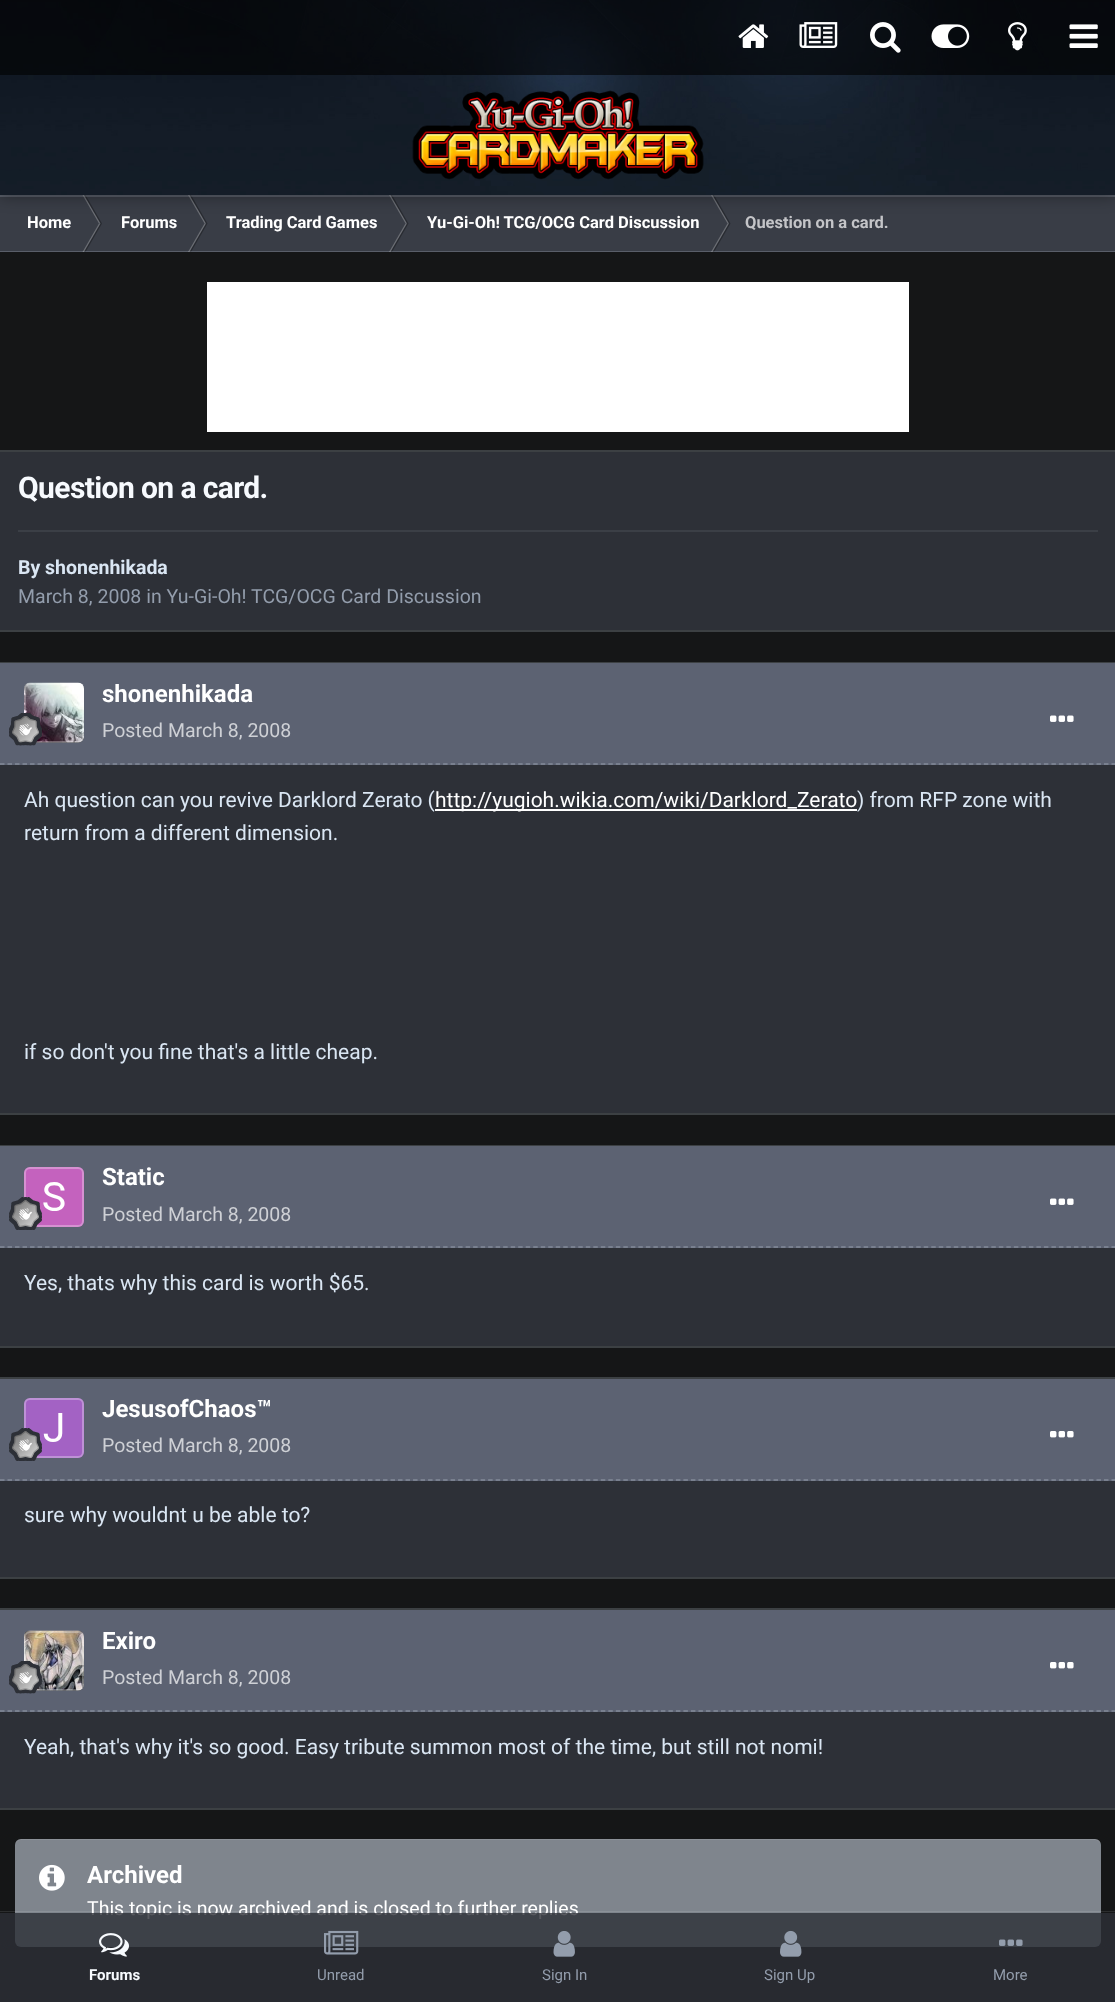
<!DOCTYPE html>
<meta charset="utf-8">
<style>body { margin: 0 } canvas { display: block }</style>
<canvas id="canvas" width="1115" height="2002"></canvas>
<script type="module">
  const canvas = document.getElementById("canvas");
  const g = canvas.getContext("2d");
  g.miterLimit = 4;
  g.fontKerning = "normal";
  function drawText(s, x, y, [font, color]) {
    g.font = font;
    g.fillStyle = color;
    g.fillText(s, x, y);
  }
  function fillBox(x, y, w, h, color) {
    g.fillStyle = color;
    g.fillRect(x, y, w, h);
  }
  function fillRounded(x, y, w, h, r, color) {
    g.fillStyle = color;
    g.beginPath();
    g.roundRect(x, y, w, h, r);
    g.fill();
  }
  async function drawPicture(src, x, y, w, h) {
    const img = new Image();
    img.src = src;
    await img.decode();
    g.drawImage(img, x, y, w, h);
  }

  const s1 = ["bold 16.5px Roboto", "#FFFFFF"];
  const s2 = ["bold 16.5px Roboto", "#C4C5C8"];
  const s3 = ["bold 30px Roboto", "#F7FAFE"];
  const s4 = ["bold 19.5px Roboto", "#DAE6F3"];
  const s5 = ["19.5px Roboto", "#939DAC"];
  const s6 = ["bold 24px Roboto", "#FFFFFF"];
  const s7 = ["19.5px Roboto", "#CED0D5"];
  const s8 = ["21px Roboto", "#DAE6F3"];
  const s9 = ["21px Roboto", "#FFFFFF"];
  const s10 = ["19.5px Roboto", "#FFFFFF"];
  const s11 = ["bold 15px Roboto", "#F7FAFE"];
  const s12 = ["15px Roboto", "#939DAC"];

  fillBox(0, 0, 1115, 2002, "#151617");
  fillBox(0, 1145, 1115, 1, "#3C4043");
  fillBox(0, 662, 1115, 1, "#3C4043");
  fillBox(0, 195, 1115, 57, "#393D46");
  g.fillStyle = "#6B6E74";
  g.beginPath();
  g.moveTo(82.5, 195);
  g.lineTo(84, 195);
  g.lineTo(100.5, 223.5);
  g.lineTo(99, 223.5);
  g.closePath();
  g.fill();
  g.fillStyle = "rgba(0, 0, 0, 0.3)";
  g.beginPath();
  g.moveTo(84, 195);
  g.lineTo(85.5, 195);
  g.lineTo(102, 223.5);
  g.lineTo(100.5, 223.5);
  g.closePath();
  g.fill();
  g.fillStyle = "#6B6E74";
  g.beginPath();
  g.moveTo(188, 195);
  g.lineTo(189.5, 195);
  g.lineTo(206, 223.5);
  g.lineTo(204.5, 223.5);
  g.closePath();
  g.fill();
  g.fillStyle = "rgba(0, 0, 0, 0.3)";
  g.beginPath();
  g.moveTo(189.5, 195);
  g.lineTo(191, 195);
  g.lineTo(207.5, 223.5);
  g.lineTo(206, 223.5);
  g.closePath();
  g.fill();
  g.fillStyle = "#6B6E74";
  g.beginPath();
  g.moveTo(389, 195);
  g.lineTo(390.5, 195);
  g.lineTo(407, 223.5);
  g.lineTo(405.5, 223.5);
  g.closePath();
  g.fill();
  g.fillStyle = "rgba(0, 0, 0, 0.3)";
  g.beginPath();
  g.moveTo(390.5, 195);
  g.lineTo(392, 195);
  g.lineTo(408.5, 223.5);
  g.lineTo(407, 223.5);
  g.closePath();
  g.fill();
  g.fillStyle = "#6B6E74";
  g.beginPath();
  g.moveTo(711, 195);
  g.lineTo(712.5, 195);
  g.lineTo(729, 223.5);
  g.lineTo(727.5, 223.5);
  g.closePath();
  g.fill();
  g.fillStyle = "rgba(0, 0, 0, 0.3)";
  g.beginPath();
  g.moveTo(712.5, 195);
  g.lineTo(714, 195);
  g.lineTo(730.5, 223.5);
  g.lineTo(729, 223.5);
  g.closePath();
  g.fill();
  fillBox(0, 195, 1115, 2, "rgba(218, 230, 243, 0.2)");
  g.fillStyle = "rgba(0, 0, 0, 0.35)";
  g.filter = "blur(7.5px)";
  g.beginPath();
  g.rect(0, 2, 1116, 195);
  g.fill();
  g.filter = "none";
  await drawPicture("pic1.png", 0, 0, 1115, 195);
  fillBox(0, 0, 1115, 75, "rgba(0, 0, 0, 0.6)");
  await drawPicture("pic2.png", 738, 24, 31, 24);
  await drawPicture("pic3.png", 799, 22, 39, 26);
  await drawPicture("pic4.png", 870, 22, 31, 31);
  await drawPicture("pic5.png", 931, 24, 39, 24);
  await drawPicture("pic6.png", 1008, 22, 19, 29);
  await drawPicture("pic7.png", 1069, 24, 29, 24);
  await drawPicture("pic8.png", 412, 90, 292, 90);
  g.fillStyle = "#6B6E74";
  g.beginPath();
  g.moveTo(82.5, 252);
  g.lineTo(84, 252);
  g.lineTo(100.5, 223.5);
  g.lineTo(99, 223.5);
  g.closePath();
  g.fill();
  g.fillStyle = "rgba(0, 0, 0, 0.3)";
  g.beginPath();
  g.moveTo(84, 252);
  g.lineTo(85.5, 252);
  g.lineTo(102, 223.5);
  g.lineTo(100.5, 223.5);
  g.closePath();
  g.fill();
  g.fillStyle = "#6B6E74";
  g.beginPath();
  g.moveTo(188, 252);
  g.lineTo(189.5, 252);
  g.lineTo(206, 223.5);
  g.lineTo(204.5, 223.5);
  g.closePath();
  g.fill();
  g.fillStyle = "rgba(0, 0, 0, 0.3)";
  g.beginPath();
  g.moveTo(189.5, 252);
  g.lineTo(191, 252);
  g.lineTo(207.5, 223.5);
  g.lineTo(206, 223.5);
  g.closePath();
  g.fill();
  g.fillStyle = "#6B6E74";
  g.beginPath();
  g.moveTo(389, 252);
  g.lineTo(390.5, 252);
  g.lineTo(407, 223.5);
  g.lineTo(405.5, 223.5);
  g.closePath();
  g.fill();
  g.fillStyle = "rgba(0, 0, 0, 0.3)";
  g.beginPath();
  g.moveTo(390.5, 252);
  g.lineTo(392, 252);
  g.lineTo(408.5, 223.5);
  g.lineTo(407, 223.5);
  g.closePath();
  g.fill();
  g.fillStyle = "#6B6E74";
  g.beginPath();
  g.moveTo(711, 252);
  g.lineTo(712.5, 252);
  g.lineTo(729, 223.5);
  g.lineTo(727.5, 223.5);
  g.closePath();
  g.fill();
  g.fillStyle = "rgba(0, 0, 0, 0.3)";
  g.beginPath();
  g.moveTo(712.5, 252);
  g.lineTo(714, 252);
  g.lineTo(730.5, 223.5);
  g.lineTo(729, 223.5);
  g.closePath();
  g.fill();
  fillBox(0, 251, 1115, 1, "rgba(218, 230, 243, 0.2)");
  drawText("Home", 27, 228, s1);
  drawText("Forums", 121, 228, s1);
  drawText("Trading Card Games", 226, 228, s1);
  drawText("Yu-Gi-Oh! TCG/OCG Card Discussion", 427, 228, s1);
  drawText("Question on a card.", 745, 228, s2);
  fillBox(207, 282, 702, 150, "#FFFFFF");
  fillBox(0, 452, 1115, 178, "#2D3037");
  fillBox(0, 450, 1115, 2, "#3C4043");
  fillBox(0, 630, 1115, 2, "#3C4043");
  g.letterSpacing = "-0.6px";
  drawText("Question on a card.", 18, 498, s3);
  fillBox(18, 530, 1080, 2, "#3B3F46");
  g.letterSpacing = "0px";
  drawText("By shonenhikada", 18, 574, s4);
  drawText("March 8, 2008 in Yu-Gi-Oh! TCG/OCG Card Discussion", 18, 603, s5);
  fillBox(0, 765, 1115, 348, "#2D3037");
  fillBox(0, 1113, 1115, 2, "#3C4043");
  fillBox(0, 663, 1115, 102, "#5C6272");
  g.beginPath();
  g.moveTo(0, 764);
  g.lineTo(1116, 764);
  g.strokeStyle = "#828A99";
  g.lineWidth = 1.5;
  g.setLineDash([4.5, 3.01]);
  g.stroke();
  fillRounded(24, 683, 60, 60, 6, "#2D3037");
  await drawPicture("pic9.png", 24, 682, 60, 61);
  g.beginPath();
  g.roundRect(25, 684, 58, 58, 5);
  g.strokeStyle = "rgba(255, 255, 255, 0.3)";
  g.lineWidth = 2;
  g.setLineDash([]);
  g.stroke();
  await drawPicture("pic10.png", 9, 713, 33, 33);
  drawText("shonenhikada", 102, 702, s6);
  drawText("Posted March 8, 2008", 102, 737, s7);
  await drawPicture("pic11.png", 1050, 715, 24, 7);
  drawText("Ah question can you revive Darklord Zerato (", 24, 807, s8);
  fillBox(435, 809, 422, 2, "#FFFFFF");
  drawText("http://yugioh.wikia.com/wiki/Darklord_Zerato", 435, 807, s9);
  drawText(") from RFP zone with", 857, 807, s8);
  drawText("return from a different dimension.", 24, 840, s8);
  drawText("if so don't you fine that's a little cheap.", 24, 1059, s8);
  fillBox(0, 1248, 1115, 98, "#2D3037");
  fillBox(0, 1346, 1115, 2, "#3C4043");
  fillBox(0, 1146, 1115, 102, "#5C6272");
  g.beginPath();
  g.moveTo(0, 1247);
  g.lineTo(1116, 1247);
  g.strokeStyle = "#828A99";
  g.lineWidth = 1.5;
  g.setLineDash([4.5, 3.01]);
  g.stroke();
  await drawPicture("pic12.png", 24, 1167, 60, 60);
  g.beginPath();
  g.roundRect(25, 1168, 58, 58, 5);
  g.strokeStyle = "rgba(255, 255, 255, 0.3)";
  g.lineWidth = 2;
  g.setLineDash([]);
  g.stroke();
  await drawPicture("pic13.png", 9, 1197, 33, 33);
  drawText("Static", 102, 1185, s6);
  drawText("Posted March 8, 2008", 102, 1221, s7);
  await drawPicture("pic11.png", 1050, 1198, 24, 7);
  drawText("Yes, thats why this card is worth $65.", 24, 1290, s8);
  fillBox(0, 1481, 1115, 96, "#2D3037");
  fillBox(0, 1377, 1115, 2, "#3C4043");
  fillBox(0, 1577, 1115, 2, "#3C4043");
  fillBox(0, 1379, 1115, 102, "#5C6272");
  g.beginPath();
  g.moveTo(0, 1480);
  g.lineTo(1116, 1480);
  g.strokeStyle = "#828A99";
  g.lineWidth = 1.5;
  g.setLineDash([4.5, 3.01]);
  g.stroke();
  await drawPicture("pic14.png", 24, 1398, 60, 60);
  g.beginPath();
  g.roundRect(25, 1399, 58, 58, 5);
  g.strokeStyle = "rgba(255, 255, 255, 0.3)";
  g.lineWidth = 2;
  g.setLineDash([]);
  g.stroke();
  await drawPicture("pic15.png", 9, 1428, 33, 33);
  drawText("JesusofChaos™", 102, 1417, s6);
  drawText("Posted March 8, 2008", 102, 1452, s7);
  await drawPicture("pic16.png", 1050, 1431, 24, 7);
  drawText("sure why wouldnt u be able to?", 24, 1522, s8);
  fillBox(0, 1712, 1115, 96, "#2D3037");
  fillBox(0, 1608, 1115, 2, "#3C4043");
  fillBox(0, 1808, 1115, 2, "#3C4043");
  fillBox(0, 1610, 1115, 102, "#5C6272");
  g.beginPath();
  g.moveTo(0, 1711);
  g.lineTo(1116, 1711);
  g.strokeStyle = "#828A99";
  g.lineWidth = 1.5;
  g.setLineDash([4.5, 3.01]);
  g.stroke();
  fillRounded(24, 1631, 60, 60, 6, "#2D3037");
  await drawPicture("pic17.png", 24, 1630, 60, 61);
  g.beginPath();
  g.roundRect(25, 1632, 58, 58, 5);
  g.strokeStyle = "rgba(255, 255, 255, 0.3)";
  g.lineWidth = 2;
  g.setLineDash([]);
  g.stroke();
  await drawPicture("pic18.png", 9, 1661, 33, 33);
  drawText("Exiro", 102, 1649, s6);
  drawText("Posted March 8, 2008", 102, 1684, s7);
  await drawPicture("pic16.png", 1050, 1662, 24, 7);
  drawText("Yeah, that's why it's so good. Easy tribute summon most of the time, but still not nomi!", 24, 1754, s8);
  fillRounded(15, 1839, 1086, 108, 6, "#7F858D");
  g.fillStyle = "rgba(255, 255, 255, 0.1)";
  g.beginPath();
  g.moveTo(21, 1840);
  g.lineTo(1095, 1840);
  g.bezierCurveTo(1098, 1840, 1101, 1843, 1101, 1846);
  g.bezierCurveTo(1101, 1842, 1099, 1839, 1095, 1839);
  g.lineTo(21, 1839);
  g.bezierCurveTo(17, 1839, 15, 1842, 15, 1846);
  g.bezierCurveTo(15, 1843, 18, 1840, 21, 1840);
  g.closePath();
  g.fill();
  await drawPicture("pic19.png", 39, 1864, 26, 27);
  drawText("Archived", 87, 1883, s6);
  drawText("This topic is now archived and is closed to further replies", 87, 1915, s10);
  fillBox(0, 1911, 1115, 1, "rgba(255, 255, 255, 0.1)");
  fillBox(0, 1913, 1115, 89, "rgba(45, 48, 55, 0.8)");
  await drawPicture("pic20.png", 99, 1933, 30, 24);
  drawText("Forums", 89, 1980, s11);
  await drawPicture("pic21.png", 324, 1930, 35, 25);
  drawText("Unread", 317, 1980, s12);
  await drawPicture("pic22.png", 553, 1931, 22, 26);
  drawText("Sign In", 542, 1980, s12);
  await drawPicture("pic23.png", 780, 1930, 22, 27);
  drawText("Sign Up", 764, 1980, s12);
  await drawPicture("pic24.png", 999, 1939, 24, 7);
  drawText("More", 993, 1980, s12);
</script>
